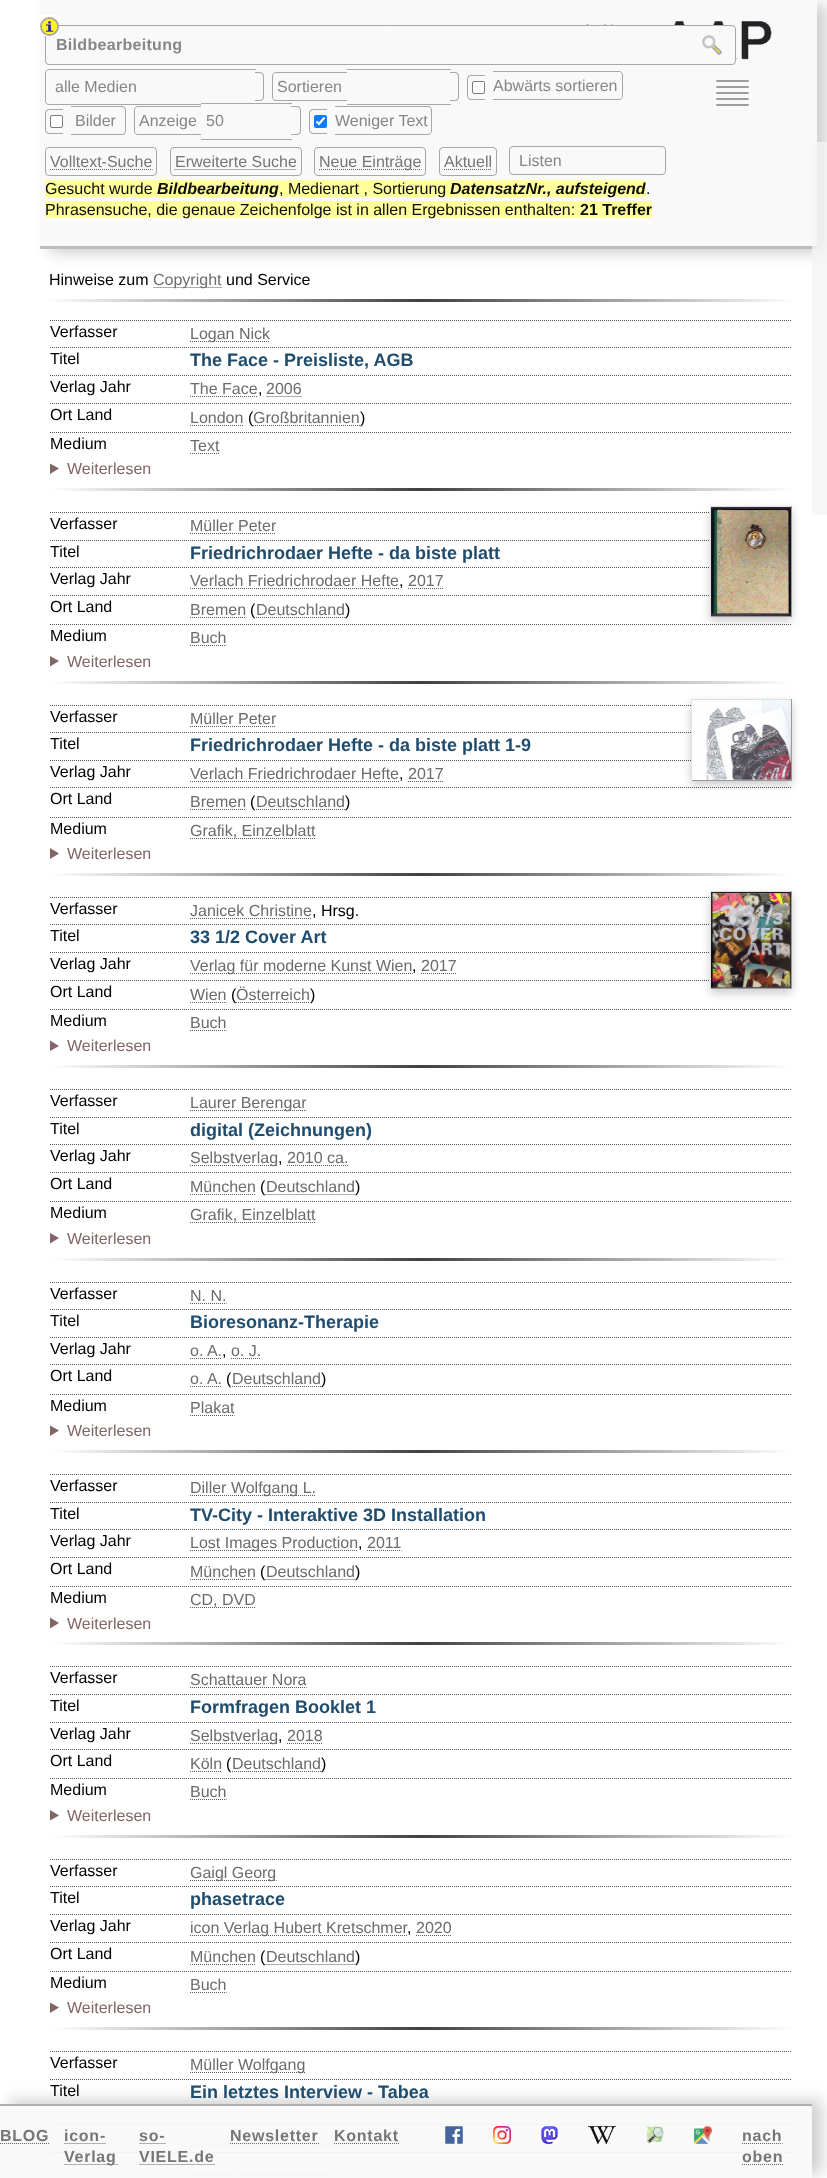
<!DOCTYPE html>
<meta charset="utf-8">
<style>body { margin: 0 } canvas { display: block }</style>
<canvas id="canvas" width="827" height="2178"></canvas>
<script type="module">
  const canvas = document.getElementById("canvas");
  const g = canvas.getContext("2d");
  g.miterLimit = 4;
  g.fontKerning = "normal";
  function drawText(s, x, y, [font, color]) {
    g.font = font;
    g.fillStyle = color;
    g.fillText(s, x, y);
  }
  function fillBox(x, y, w, h, color) {
    g.fillStyle = color;
    g.fillRect(x, y, w, h);
  }
  function fillRounded(x, y, w, h, r, color) {
    g.fillStyle = color;
    g.beginPath();
    g.roundRect(x, y, w, h, r);
    g.fill();
  }
  async function drawPicture(src, x, y, w, h) {
    const img = new Image();
    img.src = src;
    await img.decode();
    g.drawImage(img, x, y, w, h);
  }
  let gradient;

  const s1 = ["bold 16px Liberation Sans", "#868686"];
  const s2 = ["16px Liberation Sans", "#868686"];
  const s3 = ["16px Liberation Sans", "#767577"];
  const s4 = ["16px Liberation Sans", "#0D0D0D"];
  const s5 = ["italic bold 16px Liberation Sans", "#0D0D0D"];
  const s6 = ["bold 16px Liberation Sans", "#0D0D0D"];
  const s7 = ["bold 16px Liberation Sans", "#767577"];
  const s8 = ["16px Liberation Sans", "#000000"];
  const s9 = ["16px Liberation Sans", "#6C6B6D"];
  const s10 = ["bold 18px Liberation Sans", "#204D6E"];
  const s11 = ["16px Liberation Sans", "#826565"];

  fillBox(0, 0, 827, 2178, "#FFFFFF");
  g.fillStyle = "rgba(13, 13, 13, 0.2)";
  g.filter = "blur(7.5px)";
  g.beginPath();
  g.rect(50, 4, 777, 249);
  g.fill();
  g.filter = "none";
  fillBox(40, 0, 777, 246, "#F9F9F9");
  fillBox(40, 246, 777, 3, "#BDBDBD");
  await drawPicture("pic3.png", 586, 21, 186, 39);
  g.fillStyle = "#F9F9F9";
  g.beginPath();
  g.roundRect(45.5, 25.5, 690, 39, 3.5);
  g.fill();
  g.strokeStyle = "#A7A7A7";
  g.stroke();
  fillBox(40, 15, 19, 21, "#FFFFFF");
  g.beginPath();
  g.arc(49.5, 26.5, 8.5, 0, Math.PI * 2);
  g.lineWidth = 2;
  g.stroke();
  await drawPicture("pic1.png", 42, 19, 15, 15);
  g.letterSpacing = "0.3px";
  drawText("Bildbearbeitung", 56, 50, s1);
  await drawPicture("pic2.png", 702, 35, 20, 20);
  g.fillStyle = "#A7A7A7";
  g.beginPath();
  g.moveTo(49, 69);
  g.lineTo(256, 69);
  g.lineTo(256, 105);
  g.lineTo(49, 105);
  g.bezierCurveTo(47, 105, 45, 103, 45, 101);
  g.lineTo(45, 73);
  g.bezierCurveTo(45, 71, 47, 69, 49, 69);
  g.closePath();
  g.moveTo(49, 70);
  g.lineTo(256, 70);
  g.lineTo(256, 104);
  g.lineTo(49, 104);
  g.bezierCurveTo(47, 104, 46, 103, 46, 101);
  g.lineTo(46, 73);
  g.bezierCurveTo(46, 71, 47, 70, 49, 70);
  g.closePath();
  g.fill("evenodd");
  g.beginPath();
  g.moveTo(255, 72);
  g.lineTo(260, 72);
  g.bezierCurveTo(262, 72, 264, 74, 264, 76);
  g.lineTo(264, 97);
  g.bezierCurveTo(264, 99, 262, 101, 260, 101);
  g.lineTo(255, 101);
  g.closePath();
  g.moveTo(255, 73);
  g.lineTo(260, 73);
  g.bezierCurveTo(261.5, 73, 263, 74.5, 263, 76);
  g.lineTo(263, 97);
  g.bezierCurveTo(263, 98.5, 261.5, 100, 260, 100);
  g.lineTo(255, 100);
  g.closePath();
  g.fill("evenodd");
  g.letterSpacing = "0px";
  drawText("alle Medien", 55, 92, s2);
  g.fillStyle = "#A7A7A7";
  g.beginPath();
  g.moveTo(276, 72);
  g.lineTo(347, 72);
  g.lineTo(347, 101);
  g.lineTo(276, 101);
  g.bezierCurveTo(274, 101, 272, 99, 272, 97);
  g.lineTo(272, 76);
  g.bezierCurveTo(272, 74, 274, 72, 276, 72);
  g.closePath();
  g.moveTo(276, 73);
  g.lineTo(347, 73);
  g.lineTo(347, 100);
  g.lineTo(276, 100);
  g.bezierCurveTo(274, 100, 273, 99, 273, 97);
  g.lineTo(273, 76);
  g.bezierCurveTo(273, 74, 274, 73, 276, 73);
  g.closePath();
  g.fill("evenodd");
  drawText("Sortieren", 277, 92, s2);
  fillBox(347, 69, 104, 1, "#A7A7A7");
  fillBox(347, 104, 104, 1, "#A7A7A7");
  g.beginPath();
  g.moveTo(450, 72);
  g.lineTo(455, 72);
  g.bezierCurveTo(457, 72, 459, 74, 459, 76);
  g.lineTo(459, 97);
  g.bezierCurveTo(459, 99, 457, 101, 455, 101);
  g.lineTo(450, 101);
  g.closePath();
  g.moveTo(450, 73);
  g.lineTo(455, 73);
  g.bezierCurveTo(456.5, 73, 458, 74.5, 458, 76);
  g.lineTo(458, 97);
  g.bezierCurveTo(458, 98.5, 456.5, 100, 455, 100);
  g.lineTo(450, 100);
  g.closePath();
  g.fill("evenodd");
  g.beginPath();
  g.moveTo(471, 75);
  g.lineTo(485, 75);
  g.lineTo(485, 100);
  g.lineTo(471, 100);
  g.bezierCurveTo(469, 100, 467, 98, 467, 96);
  g.lineTo(467, 79);
  g.bezierCurveTo(467, 77, 469, 75, 471, 75);
  g.closePath();
  g.moveTo(471, 76);
  g.lineTo(485, 76);
  g.lineTo(485, 99);
  g.lineTo(471, 99);
  g.bezierCurveTo(469.5, 99, 468, 97.5, 468, 96);
  g.lineTo(468, 79);
  g.bezierCurveTo(468, 77.5, 469.5, 76, 471, 76);
  g.closePath();
  g.fill("evenodd");
  g.beginPath();
  g.moveTo(493, 71);
  g.lineTo(619, 71);
  g.bezierCurveTo(621, 71, 623, 73, 623, 75);
  g.lineTo(623, 96);
  g.bezierCurveTo(623, 98, 621, 100, 619, 100);
  g.lineTo(493, 100);
  g.closePath();
  g.moveTo(493, 72);
  g.lineTo(619, 72);
  g.bezierCurveTo(621, 72, 622, 73, 622, 75);
  g.lineTo(622, 96);
  g.bezierCurveTo(622, 98, 621, 99, 619, 99);
  g.lineTo(493, 99);
  g.closePath();
  g.fill("evenodd");
  g.fillStyle = "#FFFFFF";
  g.beginPath();
  g.roundRect(472.5, 81.5, 12, 12, 1.5);
  g.fill();
  g.strokeStyle = "#7D7D7D";
  g.lineWidth = 1;
  g.stroke();
  drawText("Abwärts sortieren", 493, 91, s2);
  g.fillStyle = "#A7A7A7";
  g.beginPath();
  g.moveTo(49, 109);
  g.lineTo(63, 109);
  g.lineTo(63, 134);
  g.lineTo(49, 134);
  g.bezierCurveTo(47, 134, 45, 132, 45, 130);
  g.lineTo(45, 113);
  g.bezierCurveTo(45, 111, 47, 109, 49, 109);
  g.closePath();
  g.moveTo(49, 110);
  g.lineTo(63, 110);
  g.lineTo(63, 133);
  g.lineTo(49, 133);
  g.bezierCurveTo(47.5, 133, 46, 131.5, 46, 130);
  g.lineTo(46, 113);
  g.bezierCurveTo(46, 111.5, 47.5, 110, 49, 110);
  g.closePath();
  g.fill("evenodd");
  fillBox(71, 106, 45, 1, "#A7A7A7");
  fillBox(71, 134, 45, 1, "#A7A7A7");
  g.beginPath();
  g.moveTo(116, 106);
  g.lineTo(122, 106);
  g.bezierCurveTo(124, 106, 126, 108, 126, 110);
  g.lineTo(126, 131);
  g.bezierCurveTo(126, 133, 124, 135, 122, 135);
  g.lineTo(116, 135);
  g.closePath();
  g.moveTo(116, 107);
  g.lineTo(122, 107);
  g.bezierCurveTo(123.5, 107, 125, 108.5, 125, 110);
  g.lineTo(125, 131);
  g.bezierCurveTo(125, 132.5, 123.5, 134, 122, 134);
  g.lineTo(116, 134);
  g.closePath();
  g.fill("evenodd");
  g.fillStyle = "#FFFFFF";
  g.beginPath();
  g.roundRect(50.5, 115.5, 12, 12, 1.5);
  g.fill();
  g.stroke();
  drawText("Bilder", 75, 126, s2);
  g.fillStyle = "#A7A7A7";
  g.beginPath();
  g.moveTo(138, 106);
  g.lineTo(201, 106);
  g.lineTo(201, 135);
  g.lineTo(138, 135);
  g.bezierCurveTo(136, 135, 134, 133, 134, 131);
  g.lineTo(134, 110);
  g.bezierCurveTo(134, 108, 136, 106, 138, 106);
  g.closePath();
  g.moveTo(138, 107);
  g.lineTo(201, 107);
  g.lineTo(201, 134);
  g.lineTo(138, 134);
  g.bezierCurveTo(136, 134, 135, 133, 135, 131);
  g.lineTo(135, 110);
  g.bezierCurveTo(135, 108, 136, 107, 138, 107);
  g.closePath();
  g.fill("evenodd");
  fillBox(201, 104, 55, 1, "#F9F9F9");
  fillBox(201, 103, 91, 1, "#A7A7A7");
  fillBox(201, 139, 91, 1, "#A7A7A7");
  g.beginPath();
  g.moveTo(291, 106);
  g.lineTo(297, 106);
  g.bezierCurveTo(299, 106, 301, 108, 301, 110);
  g.lineTo(301, 131);
  g.bezierCurveTo(301, 133, 299, 135, 297, 135);
  g.lineTo(291, 135);
  g.closePath();
  g.moveTo(291, 107);
  g.lineTo(297, 107);
  g.bezierCurveTo(298.5, 107, 300, 108.5, 300, 110);
  g.lineTo(300, 131);
  g.bezierCurveTo(300, 132.5, 298.5, 134, 297, 134);
  g.lineTo(291, 134);
  g.closePath();
  g.fill("evenodd");
  drawText("Anzeige", 139, 126, s2);
  drawText("50", 206, 126, s2);
  g.fillStyle = "#A7A7A7";
  g.beginPath();
  g.moveTo(313, 109);
  g.lineTo(327, 109);
  g.lineTo(327, 134);
  g.lineTo(313, 134);
  g.bezierCurveTo(311, 134, 309, 132, 309, 130);
  g.lineTo(309, 113);
  g.bezierCurveTo(309, 111, 311, 109, 313, 109);
  g.closePath();
  g.moveTo(313, 110);
  g.lineTo(327, 110);
  g.lineTo(327, 133);
  g.lineTo(313, 133);
  g.bezierCurveTo(311.5, 133, 310, 131.5, 310, 130);
  g.lineTo(310, 113);
  g.bezierCurveTo(310, 111.5, 311.5, 110, 313, 110);
  g.closePath();
  g.fill("evenodd");
  g.beginPath();
  g.moveTo(335, 106);
  g.lineTo(428, 106);
  g.bezierCurveTo(430, 106, 432, 108, 432, 110);
  g.lineTo(432, 131);
  g.bezierCurveTo(432, 133, 430, 135, 428, 135);
  g.lineTo(335, 135);
  g.closePath();
  g.moveTo(335, 107);
  g.lineTo(428, 107);
  g.bezierCurveTo(430, 107, 431, 108, 431, 110);
  g.lineTo(431, 131);
  g.bezierCurveTo(431, 133, 430, 134, 428, 134);
  g.lineTo(335, 134);
  g.closePath();
  g.fill("evenodd");
  fillRounded(314, 115, 13, 13, 2, "#0D7CFF");
  g.beginPath();
  g.moveTo(316.5, 121.5);
  g.lineTo(319, 124);
  g.lineTo(324.5, 117.5);
  g.strokeStyle = "#FFFFFF";
  g.lineWidth = 2.1;
  g.stroke();
  drawText("Weniger Text", 335, 126, s2);
  g.beginPath();
  g.roundRect(45.5, 147.5, 111, 28, 3.5);
  g.strokeStyle = "#A7A7A7";
  g.lineWidth = 1;
  g.stroke();
  drawText("Volltext-Suche", 50, 167, s3);
  g.beginPath();
  g.moveTo(50, 169.5);
  g.lineTo(152.5, 169.5);
  g.strokeStyle = "#626262";
  g.setLineDash([1, 1]);
  g.stroke();
  g.beginPath();
  g.roundRect(170.5, 147.5, 131, 28, 3.5);
  g.strokeStyle = "#A7A7A7";
  g.setLineDash([]);
  g.stroke();
  drawText("Erweiterte Suche", 175, 167, s3);
  g.beginPath();
  g.moveTo(174.5, 169.5);
  g.lineTo(296.5, 169.5);
  g.strokeStyle = "#626262";
  g.setLineDash([1, 1]);
  g.stroke();
  g.beginPath();
  g.roundRect(314.5, 147.5, 111, 28, 3.5);
  g.strokeStyle = "#A7A7A7";
  g.setLineDash([]);
  g.stroke();
  g.beginPath();
  g.moveTo(319, 169.5);
  g.lineTo(421.5, 169.5);
  g.strokeStyle = "#626262";
  g.setLineDash([1, 1]);
  g.stroke();
  drawText("Neue Einträge", 319, 167, s3);
  g.beginPath();
  g.roundRect(439.5, 147.5, 57, 28, 3.5);
  g.strokeStyle = "#A7A7A7";
  g.setLineDash([]);
  g.stroke();
  drawText("Aktuell", 444, 167, s3);
  g.beginPath();
  g.moveTo(444, 169.5);
  g.lineTo(492, 169.5);
  g.strokeStyle = "#626262";
  g.setLineDash([1, 1]);
  g.stroke();
  g.beginPath();
  g.roundRect(509.5, 146.5, 156, 28, 3.5);
  g.strokeStyle = "#A7A7A7";
  g.setLineDash([]);
  g.stroke();
  drawText("Listen", 519, 166, s2);
  fillBox(45, 180, 601, 17, "#FFFF9E");
  drawText("Gesucht wurde", 45, 194, s4);
  drawText("Bildbearbeitung", 157, 194, s5);
  drawText(", Medienart , Sortierung", 279, 194, s4);
  drawText("DatensatzNr., aufsteigend", 450, 194, s5);
  drawText(".", 646, 194, s4);
  fillBox(45, 201, 607, 17, "#FFFF9E");
  drawText("Phrasensuche, die genaue Zeichenfolge ist in allen Ergebnissen enthalten:", 45, 215, s4);
  drawText("21 Treffer", 580, 215, s6);
  fillRounded(716, 80, 33, 2, 1, "#A09D9D");
  fillRounded(716, 86, 33, 2, 1, "#A09D9D");
  fillRounded(716, 92, 33, 2, 1, "#A09D9D");
  fillRounded(716, 98, 33, 2, 1, "#A09D9D");
  fillRounded(716, 104, 33, 2, 1, "#A09D9D");
  fillBox(812, 142, 15, 373, "rgba(243, 243, 243, 0.79)");
  g.beginPath();
  g.moveTo(50, 2079.5);
  g.lineTo(792, 2079.5);
  g.strokeStyle = "#555454";
  g.setLineDash([1, 1]);
  g.stroke();
  g.beginPath();
  g.moveTo(50, 2124.5);
  g.lineTo(792, 2124.5);
  g.stroke();
  g.beginPath();
  g.moveTo(190, 2145.5);
  g.lineTo(304.5, 2145.5);
  g.strokeStyle = "#5A5A5A";
  g.stroke();
  g.beginPath();
  g.moveTo(313.5, 2145.5);
  g.lineTo(349, 2145.5);
  g.stroke();
  g.beginPath();
  g.moveTo(50, 2152.5);
  g.lineTo(792, 2152.5);
  g.strokeStyle = "#555454";
  g.stroke();
  g.beginPath();
  g.moveTo(190, 2174.5);
  g.lineTo(231, 2174.5);
  g.strokeStyle = "#5A5A5A";
  g.stroke();
  g.beginPath();
  g.moveTo(240.5, 2174.5);
  g.lineTo(329.5, 2174.5);
  g.stroke();
  g.save();
  g.beginPath();
  g.moveTo(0, 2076);
  g.lineTo(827, 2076);
  g.lineTo(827, 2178);
  g.lineTo(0, 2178);
  g.closePath();
  g.moveTo(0, 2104);
  g.lineTo(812, 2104);
  g.lineTo(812, 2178);
  g.lineTo(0, 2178);
  g.closePath();
  g.clip("evenodd");
  g.fillStyle = "rgba(0, 0, 0, 0.19)";
  g.filter = "blur(7.5px)";
  g.beginPath();
  g.rect(10, 2100, 812, 74);
  g.fill();
  g.filter = "none";
  g.restore();
  fillBox(0, 2104, 812, 74, "rgba(249, 249, 249, 0.93)");
  fillBox(0, 2104, 812, 2, "rgba(169, 169, 169, 0.93)");
  g.letterSpacing = "0.75px";
  drawText("BLOG", 0, 2141, s7);
  g.beginPath();
  g.moveTo(0, 2143.5);
  g.lineTo(49.5, 2143.5);
  g.strokeStyle = "#656565";
  g.stroke();
  drawText("icon-", 64, 2141, s7);
  g.beginPath();
  g.moveTo(64.5, 2143.5);
  g.lineTo(106.5, 2143.5);
  g.strokeStyle = "rgba(90, 90, 90, 0.93)";
  g.stroke();
  g.beginPath();
  g.moveTo(64.5, 2164.5);
  g.lineTo(117.5, 2164.5);
  g.stroke();
  drawText("Verlag", 64, 2162, s7);
  drawText("so-", 139, 2141, s7);
  g.beginPath();
  g.moveTo(139.5, 2143.5);
  g.lineTo(166, 2143.5);
  g.strokeStyle = "#656565";
  g.stroke();
  drawText("VIELE.de", 139, 2162, s7);
  g.beginPath();
  g.moveTo(139.5, 2164.5);
  g.lineTo(215, 2164.5);
  g.strokeStyle = "rgba(90, 90, 90, 0.93)";
  g.stroke();
  drawText("Newsletter", 230, 2141, s7);
  g.beginPath();
  g.moveTo(230, 2143.5);
  g.lineTo(319, 2143.5);
  g.stroke();
  drawText("Kontakt", 334, 2141, s7);
  g.beginPath();
  g.moveTo(334, 2143.5);
  g.lineTo(399, 2143.5);
  g.strokeStyle = "#656565";
  g.stroke();
  await drawPicture("pic4.png", 445, 2126, 18, 18);
  await drawPicture("pic5.png", 493, 2126, 18, 18);
  await drawPicture("pic6.png", 541, 2126, 17, 18);
  await drawPicture("pic7.png", 588, 2126, 28, 18);
  await drawPicture("pic8.png", 646, 2126, 18, 18);
  await drawPicture("pic9.png", 694, 2126, 18, 18);
  drawText("nach", 742, 2141, s7);
  g.beginPath();
  g.moveTo(742, 2143.5);
  g.lineTo(782.5, 2143.5);
  g.stroke();
  drawText("oben", 742, 2162, s7);
  g.beginPath();
  g.moveTo(742, 2164.5);
  g.lineTo(783.5, 2164.5);
  g.stroke();
  g.letterSpacing = "0px";
  drawText("Hinweise zum", 49, 285, s8);
  g.beginPath();
  g.moveTo(153.5, 287.5);
  g.lineTo(222, 287.5);
  g.strokeStyle = "#5A5A5A";
  g.stroke();
  drawText("Copyright", 153, 285, s9);
  drawText("und Service", 226, 285, s8);
  gradient = g.createLinearGradient(45, 301, 797, 301);
  gradient.addColorStop(0, "#FFFFFF");
  gradient.addColorStop(0.5, "#404040");
  gradient.addColorStop(1, "#FFFFFF");
  g.fillStyle = gradient;
  g.fillRect(45, 299, 752, 3);
  g.beginPath();
  g.moveTo(50, 320.5);
  g.lineTo(792, 320.5);
  g.strokeStyle = "#555454";
  g.stroke();
  drawText("Verfasser", 50, 337, s8);
  g.beginPath();
  g.moveTo(190, 341.5);
  g.lineTo(270, 341.5);
  g.strokeStyle = "#5A5A5A";
  g.stroke();
  drawText("Logan Nick", 190, 339, s9);
  g.beginPath();
  g.moveTo(50, 347.5);
  g.lineTo(792, 347.5);
  g.strokeStyle = "#555454";
  g.stroke();
  drawText("Titel", 50, 364, s8);
  drawText("The Face - Preisliste, AGB", 190, 366, s10);
  g.beginPath();
  g.moveTo(50, 375.5);
  g.lineTo(792, 375.5);
  g.stroke();
  drawText("Verlag Jahr", 50, 392, s8);
  drawText("The Face", 190, 394, s9);
  g.beginPath();
  g.moveTo(190, 396.5);
  g.lineTo(257.5, 396.5);
  g.strokeStyle = "#5A5A5A";
  g.stroke();
  drawText(",", 258, 394, s8);
  drawText("2006", 266, 394, s9);
  g.beginPath();
  g.moveTo(266.5, 396.5);
  g.lineTo(302, 396.5);
  g.stroke();
  g.beginPath();
  g.moveTo(50, 403.5);
  g.lineTo(792, 403.5);
  g.strokeStyle = "#555454";
  g.stroke();
  drawText("Ort Land", 50, 420, s8);
  drawText("London", 190, 423, s9);
  g.beginPath();
  g.moveTo(190, 425.5);
  g.lineTo(243.5, 425.5);
  g.strokeStyle = "#5A5A5A";
  g.stroke();
  drawText("(", 248, 423, s8);
  drawText("Großbritannien", 253, 423, s9);
  g.beginPath();
  g.moveTo(253, 425.5);
  g.lineTo(360, 425.5);
  g.stroke();
  drawText(")", 360, 423, s8);
  g.beginPath();
  g.moveTo(50, 432.5);
  g.lineTo(792, 432.5);
  g.strokeStyle = "#555454";
  g.stroke();
  drawText("Medium", 50, 449, s8);
  drawText("Text", 190, 451, s9);
  g.beginPath();
  g.moveTo(190, 453.5);
  g.lineTo(219.5, 453.5);
  g.strokeStyle = "#5A5A5A";
  g.stroke();
  g.fillStyle = "#826565";
  g.beginPath();
  g.moveTo(50, 463.5);
  g.lineTo(59, 468.5);
  g.lineTo(50, 474);
  g.closePath();
  g.fill();
  drawText("Weiterlesen", 67, 474, s11);
  gradient = g.createLinearGradient(50, 490, 792, 490);
  gradient.addColorStop(0, "#FFFFFF");
  gradient.addColorStop(0.5, "#404040");
  gradient.addColorStop(1, "#FFFFFF");
  g.fillStyle = gradient;
  g.fillRect(50, 488, 742, 3);
  g.beginPath();
  g.moveTo(50, 512.5);
  g.lineTo(792, 512.5);
  g.strokeStyle = "#555454";
  g.stroke();
  drawText("Verfasser", 50, 529, s8);
  drawText("Müller Peter", 190, 531, s9);
  g.beginPath();
  g.moveTo(190, 533.5);
  g.lineTo(276, 533.5);
  g.strokeStyle = "#5A5A5A";
  g.stroke();
  g.beginPath();
  g.moveTo(50, 540.5);
  g.lineTo(792, 540.5);
  g.strokeStyle = "#555454";
  g.stroke();
  g.beginPath();
  g.moveTo(50, 567.5);
  g.lineTo(792, 567.5);
  g.stroke();
  g.beginPath();
  g.moveTo(50, 595.5);
  g.lineTo(792, 595.5);
  g.stroke();
  g.beginPath();
  g.moveTo(50, 624.5);
  g.lineTo(792, 624.5);
  g.stroke();
  g.fillStyle = "rgba(0, 0, 0, 0.2)";
  g.filter = "blur(5px)";
  g.beginPath();
  g.rect(710, 510, 82, 111);
  g.fill();
  g.filter = "none";
  fillBox(710, 506, 82, 1, "#E0E0E0");
  fillBox(791, 506, 1, 111, "#999999");
  fillBox(710, 616, 82, 1, "#999999");
  fillBox(710, 506, 1, 111, "#E0E0E0");
  await drawPicture("pic10.png", 711, 507, 80, 109);
  drawText("Titel", 50, 557, s8);
  drawText("Friedrichrodaer Hefte - da biste platt", 190, 559, s10);
  drawText("Verlag Jahr", 50, 584, s8);
  drawText("Verlach Friedrichrodaer Hefte", 190, 586, s9);
  g.beginPath();
  g.moveTo(190, 588.5);
  g.lineTo(399, 588.5);
  g.strokeStyle = "#5A5A5A";
  g.stroke();
  drawText(",", 399, 586, s8);
  drawText("2017", 408, 586, s9);
  g.beginPath();
  g.moveTo(408, 588.5);
  g.lineTo(443.5, 588.5);
  g.stroke();
  drawText("Ort Land", 50, 612, s8);
  drawText("Bremen", 190, 615, s9);
  g.beginPath();
  g.moveTo(190, 617.5);
  g.lineTo(246, 617.5);
  g.stroke();
  drawText("(", 250, 615, s8);
  drawText("Deutschland", 256, 615, s9);
  g.beginPath();
  g.moveTo(256, 617.5);
  g.lineTo(345, 617.5);
  g.stroke();
  drawText(")", 345, 615, s8);
  drawText("Medium", 50, 641, s8);
  drawText("Buch", 190, 643, s9);
  g.beginPath();
  g.moveTo(190, 645.5);
  g.lineTo(226.5, 645.5);
  g.stroke();
  g.fillStyle = "#826565";
  g.beginPath();
  g.moveTo(50, 656);
  g.lineTo(59, 661);
  g.lineTo(50, 666.5);
  g.closePath();
  g.fill();
  drawText("Weiterlesen", 67, 667, s11);
  gradient = g.createLinearGradient(50, 683, 792, 683);
  gradient.addColorStop(0, "#FFFFFF");
  gradient.addColorStop(0.5, "#404040");
  gradient.addColorStop(1, "#FFFFFF");
  g.fillStyle = gradient;
  g.fillRect(50, 681, 742, 3);
  g.beginPath();
  g.moveTo(50, 705.5);
  g.lineTo(792, 705.5);
  g.strokeStyle = "#555454";
  g.stroke();
  drawText("Verfasser", 50, 722, s8);
  drawText("Müller Peter", 190, 724, s9);
  g.beginPath();
  g.moveTo(190, 726.5);
  g.lineTo(276, 726.5);
  g.strokeStyle = "#5A5A5A";
  g.stroke();
  g.beginPath();
  g.moveTo(50, 732.5);
  g.lineTo(792, 732.5);
  g.strokeStyle = "#555454";
  g.stroke();
  g.beginPath();
  g.moveTo(50, 760.5);
  g.lineTo(792, 760.5);
  g.stroke();
  g.beginPath();
  g.moveTo(50, 787.5);
  g.lineTo(792, 787.5);
  g.stroke();
  g.fillStyle = "rgba(0, 0, 0, 0.2)";
  g.filter = "blur(5px)";
  g.beginPath();
  g.rect(691, 703, 101, 82);
  g.fill();
  g.filter = "none";
  fillBox(691, 699, 101, 1, "#E0E0E0");
  fillBox(791, 699, 1, 82, "#999999");
  fillBox(691, 780, 101, 1, "#999999");
  fillBox(691, 699, 1, 82, "#E0E0E0");
  await drawPicture("pic11.png", 692, 700, 99, 80);
  drawText("Titel", 50, 749, s8);
  drawText("Friedrichrodaer Hefte - da biste platt 1-9", 190, 751, s10);
  drawText("Verlag Jahr", 50, 777, s8);
  drawText("Verlach Friedrichrodaer Hefte", 190, 779, s9);
  g.beginPath();
  g.moveTo(190, 781.5);
  g.lineTo(399, 781.5);
  g.strokeStyle = "#5A5A5A";
  g.stroke();
  drawText(",", 399, 779, s8);
  drawText("2017", 408, 779, s9);
  g.beginPath();
  g.moveTo(408, 781.5);
  g.lineTo(443.5, 781.5);
  g.stroke();
  drawText("Ort Land", 50, 804, s8);
  drawText("Bremen", 190, 807, s9);
  g.beginPath();
  g.moveTo(190, 809.5);
  g.lineTo(246, 809.5);
  g.stroke();
  drawText("(", 250, 807, s8);
  drawText("Deutschland", 256, 807, s9);
  g.beginPath();
  g.moveTo(256, 809.5);
  g.lineTo(345, 809.5);
  g.stroke();
  drawText(")", 345, 807, s8);
  g.beginPath();
  g.moveTo(50, 817.5);
  g.lineTo(792, 817.5);
  g.strokeStyle = "#555454";
  g.stroke();
  drawText("Medium", 50, 834, s8);
  g.beginPath();
  g.moveTo(190, 838.5);
  g.lineTo(315.5, 838.5);
  g.strokeStyle = "#5A5A5A";
  g.stroke();
  drawText("Grafik, Einzelblatt", 190, 836, s9);
  g.fillStyle = "#826565";
  g.beginPath();
  g.moveTo(50, 848);
  g.lineTo(59, 853.5);
  g.lineTo(50, 859);
  g.closePath();
  g.fill();
  drawText("Weiterlesen", 67, 859, s11);
  gradient = g.createLinearGradient(50, 875, 792, 875);
  gradient.addColorStop(0, "#FFFFFF");
  gradient.addColorStop(0.5, "#404040");
  gradient.addColorStop(1, "#FFFFFF");
  g.fillStyle = gradient;
  g.fillRect(50, 873, 742, 3);
  g.beginPath();
  g.moveTo(50, 897.5);
  g.lineTo(792, 897.5);
  g.strokeStyle = "#555454";
  g.stroke();
  drawText("Verfasser", 50, 914, s8);
  drawText("Janicek Christine", 190, 916, s9);
  g.beginPath();
  g.moveTo(190, 918.5);
  g.lineTo(312, 918.5);
  g.strokeStyle = "#5A5A5A";
  g.stroke();
  drawText(", Hrsg.", 312, 916, s8);
  g.beginPath();
  g.moveTo(50, 924.5);
  g.lineTo(792, 924.5);
  g.strokeStyle = "#555454";
  g.stroke();
  g.beginPath();
  g.moveTo(50, 952.5);
  g.lineTo(792, 952.5);
  g.stroke();
  g.beginPath();
  g.moveTo(50, 980.5);
  g.lineTo(792, 980.5);
  g.stroke();
  g.fillStyle = "rgba(0, 0, 0, 0.2)";
  g.filter = "blur(5px)";
  g.beginPath();
  g.rect(710, 895, 82, 98);
  g.fill();
  g.filter = "none";
  fillBox(710, 891, 82, 1, "#E0E0E0");
  fillBox(791, 891, 1, 98, "#999999");
  fillBox(710, 988, 82, 1, "#999999");
  fillBox(710, 891, 1, 98, "#E0E0E0");
  await drawPicture("pic12.png", 711, 892, 80, 96);
  drawText("Titel", 50, 941, s8);
  drawText("33 1/2 Cover Art", 190, 943, s10);
  drawText("Verlag Jahr", 50, 969, s8);
  g.beginPath();
  g.moveTo(190, 973.5);
  g.lineTo(412.5, 973.5);
  g.strokeStyle = "#5A5A5A";
  g.stroke();
  drawText("Verlag für moderne Kunst Wien", 190, 971, s9);
  drawText(",", 412, 971, s8);
  drawText("2017", 421, 971, s9);
  g.beginPath();
  g.moveTo(421, 973.5);
  g.lineTo(457, 973.5);
  g.stroke();
  drawText("Ort Land", 50, 997, s8);
  drawText("Wien", 190, 1000, s9);
  g.beginPath();
  g.moveTo(190, 1002.5);
  g.lineTo(226.5, 1002.5);
  g.stroke();
  drawText("(", 231, 1000, s8);
  drawText("Österreich", 236, 1000, s9);
  g.beginPath();
  g.moveTo(236, 1002.5);
  g.lineTo(310, 1002.5);
  g.stroke();
  drawText(")", 310, 1000, s8);
  g.beginPath();
  g.moveTo(50, 1009.5);
  g.lineTo(792, 1009.5);
  g.strokeStyle = "#555454";
  g.stroke();
  drawText("Medium", 50, 1026, s8);
  drawText("Buch", 190, 1028, s9);
  g.beginPath();
  g.moveTo(190, 1030.5);
  g.lineTo(226.5, 1030.5);
  g.strokeStyle = "#5A5A5A";
  g.stroke();
  g.fillStyle = "#826565";
  g.beginPath();
  g.moveTo(50, 1040.5);
  g.lineTo(59, 1046);
  g.lineTo(50, 1051);
  g.closePath();
  g.fill();
  drawText("Weiterlesen", 67, 1051, s11);
  gradient = g.createLinearGradient(50, 1067, 792, 1067);
  gradient.addColorStop(0, "#FFFFFF");
  gradient.addColorStop(0.5, "#404040");
  gradient.addColorStop(1, "#FFFFFF");
  g.fillStyle = gradient;
  g.fillRect(50, 1065, 742, 3);
  g.beginPath();
  g.moveTo(50, 1089.5);
  g.lineTo(792, 1089.5);
  g.strokeStyle = "#555454";
  g.stroke();
  drawText("Verfasser", 50, 1106, s8);
  g.beginPath();
  g.moveTo(190, 1110.5);
  g.lineTo(306.5, 1110.5);
  g.strokeStyle = "#5A5A5A";
  g.stroke();
  drawText("Laurer Berengar", 190, 1108, s9);
  g.beginPath();
  g.moveTo(50, 1117.5);
  g.lineTo(792, 1117.5);
  g.strokeStyle = "#555454";
  g.stroke();
  drawText("Titel", 50, 1134, s8);
  drawText("digital (Zeichnungen)", 190, 1136, s10);
  g.beginPath();
  g.moveTo(50, 1144.5);
  g.lineTo(792, 1144.5);
  g.stroke();
  drawText("Verlag Jahr", 50, 1161, s8);
  g.beginPath();
  g.moveTo(190, 1165.5);
  g.lineTo(278, 1165.5);
  g.strokeStyle = "#5A5A5A";
  g.stroke();
  drawText("Selbstverlag", 190, 1163, s9);
  drawText(",", 278, 1163, s8);
  drawText("2010 ca.", 287, 1163, s9);
  g.beginPath();
  g.moveTo(287, 1165.5);
  g.lineTo(348.5, 1165.5);
  g.stroke();
  g.beginPath();
  g.moveTo(50, 1172.5);
  g.lineTo(792, 1172.5);
  g.strokeStyle = "#555454";
  g.stroke();
  drawText("Ort Land", 50, 1189, s8);
  drawText("München", 190, 1192, s9);
  g.beginPath();
  g.moveTo(190, 1194.5);
  g.lineTo(256, 1194.5);
  g.strokeStyle = "#5A5A5A";
  g.stroke();
  drawText("(", 260, 1192, s8);
  drawText("Deutschland", 266, 1192, s9);
  g.beginPath();
  g.moveTo(265.5, 1194.5);
  g.lineTo(354.5, 1194.5);
  g.stroke();
  drawText(")", 355, 1192, s8);
  g.beginPath();
  g.moveTo(50, 1201.5);
  g.lineTo(792, 1201.5);
  g.strokeStyle = "#555454";
  g.stroke();
  drawText("Medium", 50, 1218, s8);
  g.beginPath();
  g.moveTo(190, 1222.5);
  g.lineTo(315.5, 1222.5);
  g.strokeStyle = "#5A5A5A";
  g.stroke();
  drawText("Grafik, Einzelblatt", 190, 1220, s9);
  g.fillStyle = "#826565";
  g.beginPath();
  g.moveTo(50, 1233);
  g.lineTo(59, 1238);
  g.lineTo(50, 1243.5);
  g.closePath();
  g.fill();
  drawText("Weiterlesen", 67, 1244, s11);
  gradient = g.createLinearGradient(50, 1260, 792, 1260);
  gradient.addColorStop(0, "#FFFFFF");
  gradient.addColorStop(0.5, "#404040");
  gradient.addColorStop(1, "#FFFFFF");
  g.fillStyle = gradient;
  g.fillRect(50, 1258, 742, 3);
  g.beginPath();
  g.moveTo(50, 1282.5);
  g.lineTo(792, 1282.5);
  g.strokeStyle = "#555454";
  g.stroke();
  drawText("Verfasser", 50, 1299, s8);
  drawText("N. N.", 190, 1301, s9);
  g.beginPath();
  g.moveTo(190, 1303.5);
  g.lineTo(226.5, 1303.5);
  g.strokeStyle = "#5A5A5A";
  g.stroke();
  g.beginPath();
  g.moveTo(50, 1309.5);
  g.lineTo(792, 1309.5);
  g.strokeStyle = "#555454";
  g.stroke();
  drawText("Titel", 50, 1326, s8);
  drawText("Bioresonanz-Therapie", 190, 1328, s10);
  g.beginPath();
  g.moveTo(50, 1337.5);
  g.lineTo(792, 1337.5);
  g.stroke();
  drawText("Verlag Jahr", 50, 1354, s8);
  drawText("o. A.", 190, 1356, s9);
  g.beginPath();
  g.moveTo(190, 1358.5);
  g.lineTo(222, 1358.5);
  g.strokeStyle = "#5A5A5A";
  g.stroke();
  drawText(",", 222, 1356, s8);
  drawText("o. J.", 231, 1356, s9);
  g.beginPath();
  g.moveTo(231, 1358.5);
  g.lineTo(261, 1358.5);
  g.stroke();
  g.beginPath();
  g.moveTo(50, 1364.5);
  g.lineTo(792, 1364.5);
  g.strokeStyle = "#555454";
  g.stroke();
  drawText("Ort Land", 50, 1381, s8);
  drawText("o. A.", 190, 1384, s9);
  g.beginPath();
  g.moveTo(190, 1386.5);
  g.lineTo(222, 1386.5);
  g.strokeStyle = "#5A5A5A";
  g.stroke();
  drawText("(", 226, 1384, s8);
  drawText("Deutschland", 232, 1384, s9);
  g.beginPath();
  g.moveTo(232, 1386.5);
  g.lineTo(321, 1386.5);
  g.stroke();
  drawText(")", 321, 1384, s8);
  g.beginPath();
  g.moveTo(50, 1394.5);
  g.lineTo(792, 1394.5);
  g.strokeStyle = "#555454";
  g.stroke();
  drawText("Medium", 50, 1411, s8);
  drawText("Plakat", 190, 1413, s9);
  g.beginPath();
  g.moveTo(190, 1415.5);
  g.lineTo(234.5, 1415.5);
  g.strokeStyle = "#5A5A5A";
  g.stroke();
  g.fillStyle = "#826565";
  g.beginPath();
  g.moveTo(50, 1425.5);
  g.lineTo(59, 1430.5);
  g.lineTo(50, 1436);
  g.closePath();
  g.fill();
  drawText("Weiterlesen", 67, 1436, s11);
  gradient = g.createLinearGradient(50, 1452, 792, 1452);
  gradient.addColorStop(0, "#FFFFFF");
  gradient.addColorStop(0.5, "#404040");
  gradient.addColorStop(1, "#FFFFFF");
  g.fillStyle = gradient;
  g.fillRect(50, 1450, 742, 3);
  g.beginPath();
  g.moveTo(50, 1474.5);
  g.lineTo(792, 1474.5);
  g.strokeStyle = "#555454";
  g.stroke();
  drawText("Verfasser", 50, 1491, s8);
  g.beginPath();
  g.moveTo(190, 1495.5);
  g.lineTo(316, 1495.5);
  g.strokeStyle = "#5A5A5A";
  g.stroke();
  drawText("Diller Wolfgang L.", 190, 1493, s9);
  g.beginPath();
  g.moveTo(50, 1502.5);
  g.lineTo(792, 1502.5);
  g.strokeStyle = "#555454";
  g.stroke();
  drawText("Titel", 50, 1519, s8);
  drawText("TV-City - Interaktive 3D Installation", 190, 1521, s10);
  g.beginPath();
  g.moveTo(50, 1529.5);
  g.lineTo(792, 1529.5);
  g.stroke();
  drawText("Verlag Jahr", 50, 1546, s8);
  g.beginPath();
  g.moveTo(190, 1550.5);
  g.lineTo(358, 1550.5);
  g.strokeStyle = "#5A5A5A";
  g.stroke();
  drawText("Lost Images Production", 190, 1548, s9);
  drawText(",", 358, 1548, s8);
  drawText("2011", 367, 1548, s9);
  g.beginPath();
  g.moveTo(367, 1550.5);
  g.lineTo(401.5, 1550.5);
  g.stroke();
  g.beginPath();
  g.moveTo(50, 1557.5);
  g.lineTo(792, 1557.5);
  g.strokeStyle = "#555454";
  g.stroke();
  drawText("Ort Land", 50, 1574, s8);
  drawText("München", 190, 1577, s9);
  g.beginPath();
  g.moveTo(190, 1579.5);
  g.lineTo(256, 1579.5);
  g.strokeStyle = "#5A5A5A";
  g.stroke();
  drawText("(", 260, 1577, s8);
  drawText("Deutschland", 266, 1577, s9);
  g.beginPath();
  g.moveTo(265.5, 1579.5);
  g.lineTo(354.5, 1579.5);
  g.stroke();
  drawText(")", 355, 1577, s8);
  g.beginPath();
  g.moveTo(50, 1586.5);
  g.lineTo(792, 1586.5);
  g.strokeStyle = "#555454";
  g.stroke();
  drawText("Medium", 50, 1603, s8);
  g.beginPath();
  g.moveTo(190, 1607.5);
  g.lineTo(256, 1607.5);
  g.strokeStyle = "#5A5A5A";
  g.stroke();
  drawText("CD, DVD", 190, 1605, s9);
  g.fillStyle = "#826565";
  g.beginPath();
  g.moveTo(50, 1617.5);
  g.lineTo(59, 1623);
  g.lineTo(50, 1628.5);
  g.closePath();
  g.fill();
  drawText("Weiterlesen", 67, 1629, s11);
  gradient = g.createLinearGradient(50, 1644, 792, 1644);
  gradient.addColorStop(0, "#FFFFFF");
  gradient.addColorStop(0.5, "#404040");
  gradient.addColorStop(1, "#FFFFFF");
  g.fillStyle = gradient;
  g.fillRect(50, 1642, 742, 3);
  g.beginPath();
  g.moveTo(50, 1666.5);
  g.lineTo(792, 1666.5);
  g.strokeStyle = "#555454";
  g.stroke();
  drawText("Verfasser", 50, 1683, s8);
  drawText("Schattauer Nora", 190, 1685, s9);
  g.beginPath();
  g.moveTo(190, 1687.5);
  g.lineTo(306.5, 1687.5);
  g.strokeStyle = "#5A5A5A";
  g.stroke();
  g.beginPath();
  g.moveTo(50, 1694.5);
  g.lineTo(792, 1694.5);
  g.strokeStyle = "#555454";
  g.stroke();
  drawText("Titel", 50, 1711, s8);
  drawText("Formfragen Booklet 1", 190, 1713, s10);
  g.beginPath();
  g.moveTo(50, 1722.5);
  g.lineTo(792, 1722.5);
  g.stroke();
  drawText("Verlag Jahr", 50, 1739, s8);
  g.beginPath();
  g.moveTo(190, 1743.5);
  g.lineTo(278, 1743.5);
  g.strokeStyle = "#5A5A5A";
  g.stroke();
  drawText("Selbstverlag", 190, 1741, s9);
  drawText(",", 278, 1741, s8);
  drawText("2018", 287, 1741, s9);
  g.beginPath();
  g.moveTo(287, 1743.5);
  g.lineTo(322.5, 1743.5);
  g.stroke();
  g.beginPath();
  g.moveTo(50, 1749.5);
  g.lineTo(792, 1749.5);
  g.strokeStyle = "#555454";
  g.stroke();
  drawText("Ort Land", 50, 1766, s8);
  drawText("Köln", 190, 1769, s9);
  g.beginPath();
  g.moveTo(190, 1771.5);
  g.lineTo(222, 1771.5);
  g.strokeStyle = "#5A5A5A";
  g.stroke();
  drawText("(", 226, 1769, s8);
  drawText("Deutschland", 232, 1769, s9);
  g.beginPath();
  g.moveTo(232, 1771.5);
  g.lineTo(321, 1771.5);
  g.stroke();
  drawText(")", 321, 1769, s8);
  g.beginPath();
  g.moveTo(50, 1778.5);
  g.lineTo(792, 1778.5);
  g.strokeStyle = "#555454";
  g.stroke();
  drawText("Medium", 50, 1795, s8);
  drawText("Buch", 190, 1797, s9);
  g.beginPath();
  g.moveTo(190, 1799.5);
  g.lineTo(226.5, 1799.5);
  g.strokeStyle = "#5A5A5A";
  g.stroke();
  g.fillStyle = "#826565";
  g.beginPath();
  g.moveTo(50, 1810);
  g.lineTo(59, 1815.5);
  g.lineTo(50, 1820.5);
  g.closePath();
  g.fill();
  drawText("Weiterlesen", 67, 1821, s11);
  gradient = g.createLinearGradient(50, 1837, 792, 1837);
  gradient.addColorStop(0, "#FFFFFF");
  gradient.addColorStop(0.5, "#404040");
  gradient.addColorStop(1, "#FFFFFF");
  g.fillStyle = gradient;
  g.fillRect(50, 1835, 742, 3);
  g.beginPath();
  g.moveTo(50, 1859.5);
  g.lineTo(792, 1859.5);
  g.strokeStyle = "#555454";
  g.stroke();
  drawText("Verfasser", 50, 1876, s8);
  g.beginPath();
  g.moveTo(190, 1880.5);
  g.lineTo(276.5, 1880.5);
  g.strokeStyle = "#5A5A5A";
  g.stroke();
  drawText("Gaigl Georg", 190, 1878, s9);
  g.beginPath();
  g.moveTo(50, 1886.5);
  g.lineTo(792, 1886.5);
  g.strokeStyle = "#555454";
  g.stroke();
  drawText("Titel", 50, 1903, s8);
  drawText("phasetrace", 190, 1905, s10);
  g.beginPath();
  g.moveTo(50, 1914.5);
  g.lineTo(792, 1914.5);
  g.stroke();
  drawText("Verlag Jahr", 50, 1931, s8);
  g.beginPath();
  g.moveTo(190, 1935.5);
  g.lineTo(407, 1935.5);
  g.strokeStyle = "#5A5A5A";
  g.stroke();
  drawText("icon Verlag Hubert Kretschmer", 190, 1933, s9);
  drawText(",", 407, 1933, s8);
  drawText("2020", 416, 1933, s9);
  g.beginPath();
  g.moveTo(416, 1935.5);
  g.lineTo(451.5, 1935.5);
  g.stroke();
  g.beginPath();
  g.moveTo(50, 1942.5);
  g.lineTo(792, 1942.5);
  g.strokeStyle = "#555454";
  g.stroke();
  drawText("Ort Land", 50, 1959, s8);
  drawText("München", 190, 1962, s9);
  g.beginPath();
  g.moveTo(190, 1964.5);
  g.lineTo(256, 1964.5);
  g.strokeStyle = "#5A5A5A";
  g.stroke();
  drawText("(", 260, 1962, s8);
  drawText("Deutschland", 266, 1962, s9);
  g.beginPath();
  g.moveTo(265.5, 1964.5);
  g.lineTo(354.5, 1964.5);
  g.stroke();
  drawText(")", 355, 1962, s8);
  g.beginPath();
  g.moveTo(50, 1971.5);
  g.lineTo(792, 1971.5);
  g.strokeStyle = "#555454";
  g.stroke();
  drawText("Medium", 50, 1988, s8);
  drawText("Buch", 190, 1990, s9);
  g.beginPath();
  g.moveTo(190, 1992.5);
  g.lineTo(226.5, 1992.5);
  g.strokeStyle = "#5A5A5A";
  g.stroke();
  g.fillStyle = "#826565";
  g.beginPath();
  g.moveTo(50, 2002.5);
  g.lineTo(59, 2007.5);
  g.lineTo(50, 2013);
  g.closePath();
  g.fill();
  drawText("Weiterlesen", 67, 2013, s11);
  gradient = g.createLinearGradient(50, 2029, 792, 2029);
  gradient.addColorStop(0, "#FFFFFF");
  gradient.addColorStop(0.5, "#404040");
  gradient.addColorStop(1, "#FFFFFF");
  g.fillStyle = gradient;
  g.fillRect(50, 2027, 742, 3);
  g.beginPath();
  g.moveTo(50, 2051.5);
  g.lineTo(792, 2051.5);
  g.strokeStyle = "#555454";
  g.stroke();
  drawText("Verfasser", 50, 2068, s8);
  g.beginPath();
  g.moveTo(190, 2072.5);
  g.lineTo(305.5, 2072.5);
  g.strokeStyle = "#5A5A5A";
  g.stroke();
  drawText("Müller Wolfgang", 190, 2070, s9);
  drawText("Titel", 50, 2096, s8);
  drawText("Ein letztes Interview - Tabea", 190, 2098, s10);
</script>
